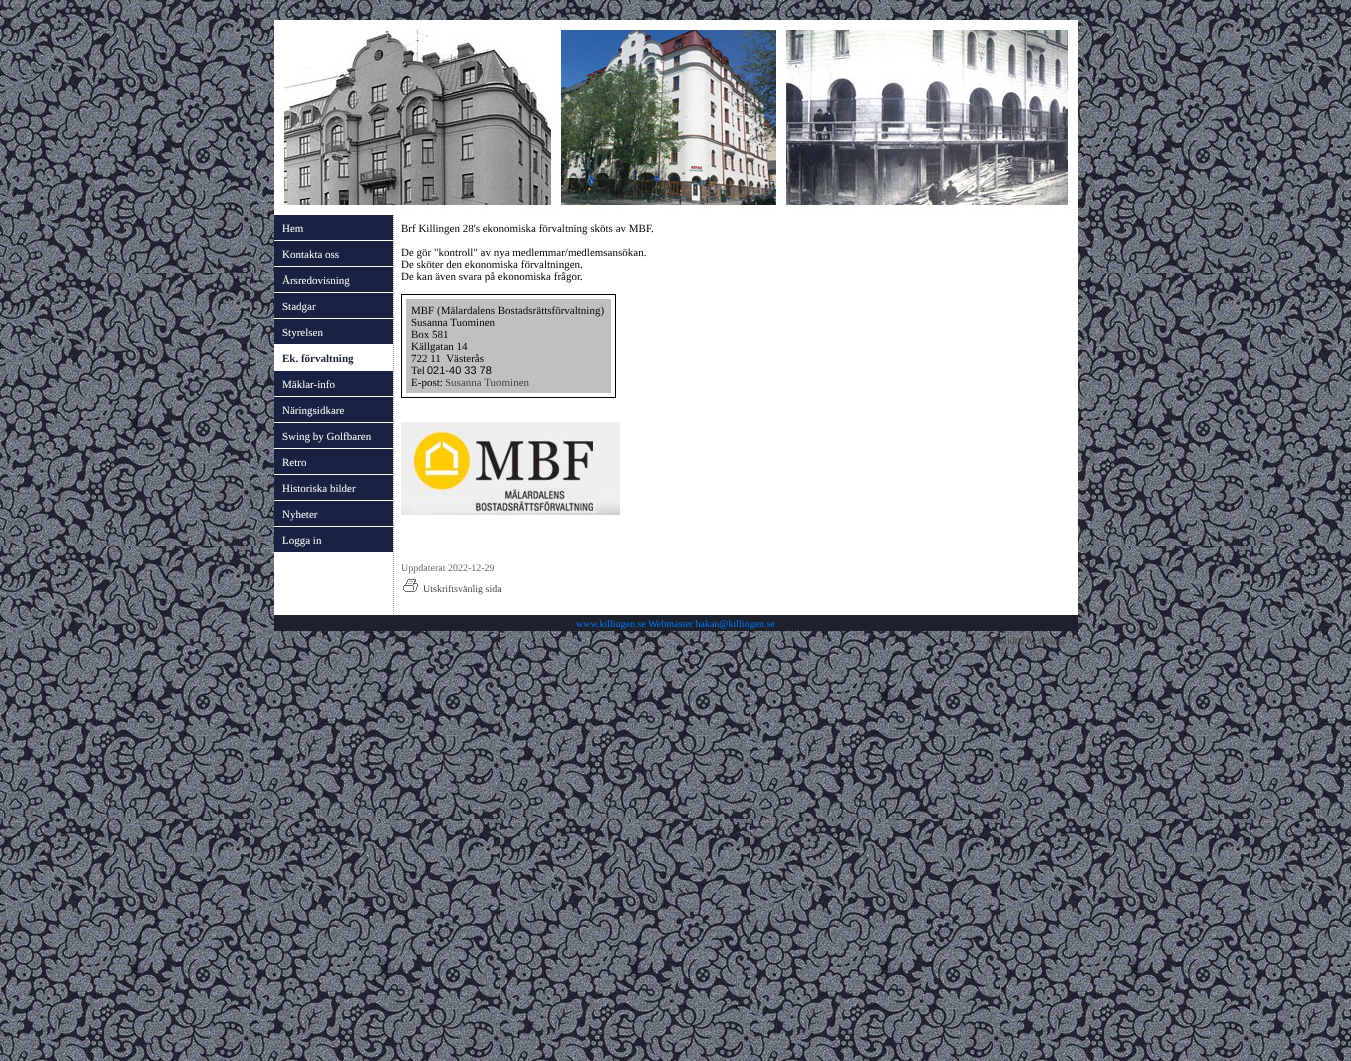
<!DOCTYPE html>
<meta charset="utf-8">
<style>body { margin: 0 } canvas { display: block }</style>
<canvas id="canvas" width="1351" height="1061"></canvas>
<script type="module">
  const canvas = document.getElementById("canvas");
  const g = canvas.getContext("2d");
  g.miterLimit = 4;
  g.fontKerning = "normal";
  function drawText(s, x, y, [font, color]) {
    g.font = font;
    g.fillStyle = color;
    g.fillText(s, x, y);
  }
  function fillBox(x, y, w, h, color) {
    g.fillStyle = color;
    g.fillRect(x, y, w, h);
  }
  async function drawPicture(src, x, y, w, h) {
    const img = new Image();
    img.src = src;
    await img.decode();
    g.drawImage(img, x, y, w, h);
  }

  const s1 = ["11px Liberation Serif", "#FFFFFF"];
  const s2 = ["bold 11px Liberation Serif", "#1A2238"];
  const s3 = ["11px Liberation Serif", "#000000"];
  const s4 = ["11px Liberation Sans", "#000000"];
  const s5 = ["11px Liberation Serif", "#484545"];
  const s6 = ["10px Liberation Serif", "#666666"];
  const s7 = ["10px Liberation Serif", "#484545"];
  const s8 = ["10px Liberation Serif", "#007BFF"];

  fillBox(0, 0, 1351, 1061, "#FFFFFF");
  await drawPicture("pic1.png", 0, 0, 1351, 1061);
  fillBox(274, 20, 804, 595, "#FFFFFF");
  await drawPicture("pic2.png", 282, 28, 792, 184);
  fillBox(274, 215, 119, 25, "#1A2243");
  drawText("Hem", 282, 232, s1);
  fillBox(274, 241, 119, 25, "#1A2243");
  drawText("Kontakta oss", 282, 258, s1);
  fillBox(274, 267, 119, 25, "#1A2243");
  drawText("Årsredovisning", 282, 284, s1);
  fillBox(274, 293, 119, 25, "#1A2243");
  drawText("Stadgar", 282, 310, s1);
  fillBox(274, 319, 119, 25, "#1A2243");
  drawText("Styrelsen", 282, 336, s1);
  drawText("Ek. förvaltning", 282, 362, s2);
  fillBox(274, 371, 119, 25, "#1A2243");
  drawText("Mäklar-info", 282, 388, s1);
  fillBox(274, 397, 119, 25, "#1A2243");
  drawText("Näringsidkare", 282, 414, s1);
  fillBox(274, 423, 119, 25, "#1A2243");
  drawText("Swing by Golfbaren", 282, 440, s1);
  fillBox(274, 449, 119, 25, "#1A2243");
  drawText("Retro", 282, 466, s1);
  fillBox(274, 475, 119, 25, "#1A2243");
  drawText("Historiska bilder", 282, 492, s1);
  fillBox(274, 501, 119, 25, "#1A2243");
  drawText("Nyheter", 282, 518, s1);
  fillBox(274, 527, 119, 25, "#1A2243");
  drawText("Logga in", 282, 544, s1);
  g.beginPath();
  g.moveTo(393.5, 215);
  g.lineTo(393.5, 615);
  g.strokeStyle = "#999999";
  g.setLineDash([1, 1]);
  g.stroke();
  drawText("Brf Killingen 28's ekonomiska förvaltning sköts av MBF.", 401, 232, s3);
  drawText("De gör \"kontroll\" av nya medlemmar/medlemsansökan.", 401, 256, s3);
  drawText("De sköter den ekonomiska förvaltningen.", 401, 268, s3);
  drawText("De kan även svara på ekonomiska frågor.", 401, 280, s3);
  g.strokeStyle = "#000000";
  g.setLineDash([]);
  g.strokeRect(401.5, 294.5, 214, 103);
  fillBox(406, 299, 205, 94, "#C0C0C0");
  drawText("MBF (Mälardalens Bostadsrättsförvaltning)", 411, 314, s3);
  drawText("Susanna Tuominen", 411, 326, s3);
  drawText("Box 581", 411, 338, s3);
  drawText("Källgatan 14", 411, 350, s3);
  drawText("722 11  Västerås", 411, 362, s3);
  drawText("Tel", 411, 374, s3);
  drawText("021-40 33 78", 427, 374, s4);
  drawText("E-post:", 411, 386, s3);
  drawText("Susanna Tuominen", 445, 386, s5);
  await drawPicture("pic3.png", 401, 422, 219, 93);
  drawText("Uppdaterat 2022-12-29", 401, 571, s6);
  await drawPicture("pic4.png", 403, 579, 15, 13);
  drawText("Utskriftsvänlig sida", 423, 592, s7);
  fillBox(274, 615, 804, 16, "#1D202D");
  drawText("www.killingen.se Webmaster hakan@killingen.se", 576, 627, s8);
  drawText("Provided by Avima", 988, 644, s7);
</script>
